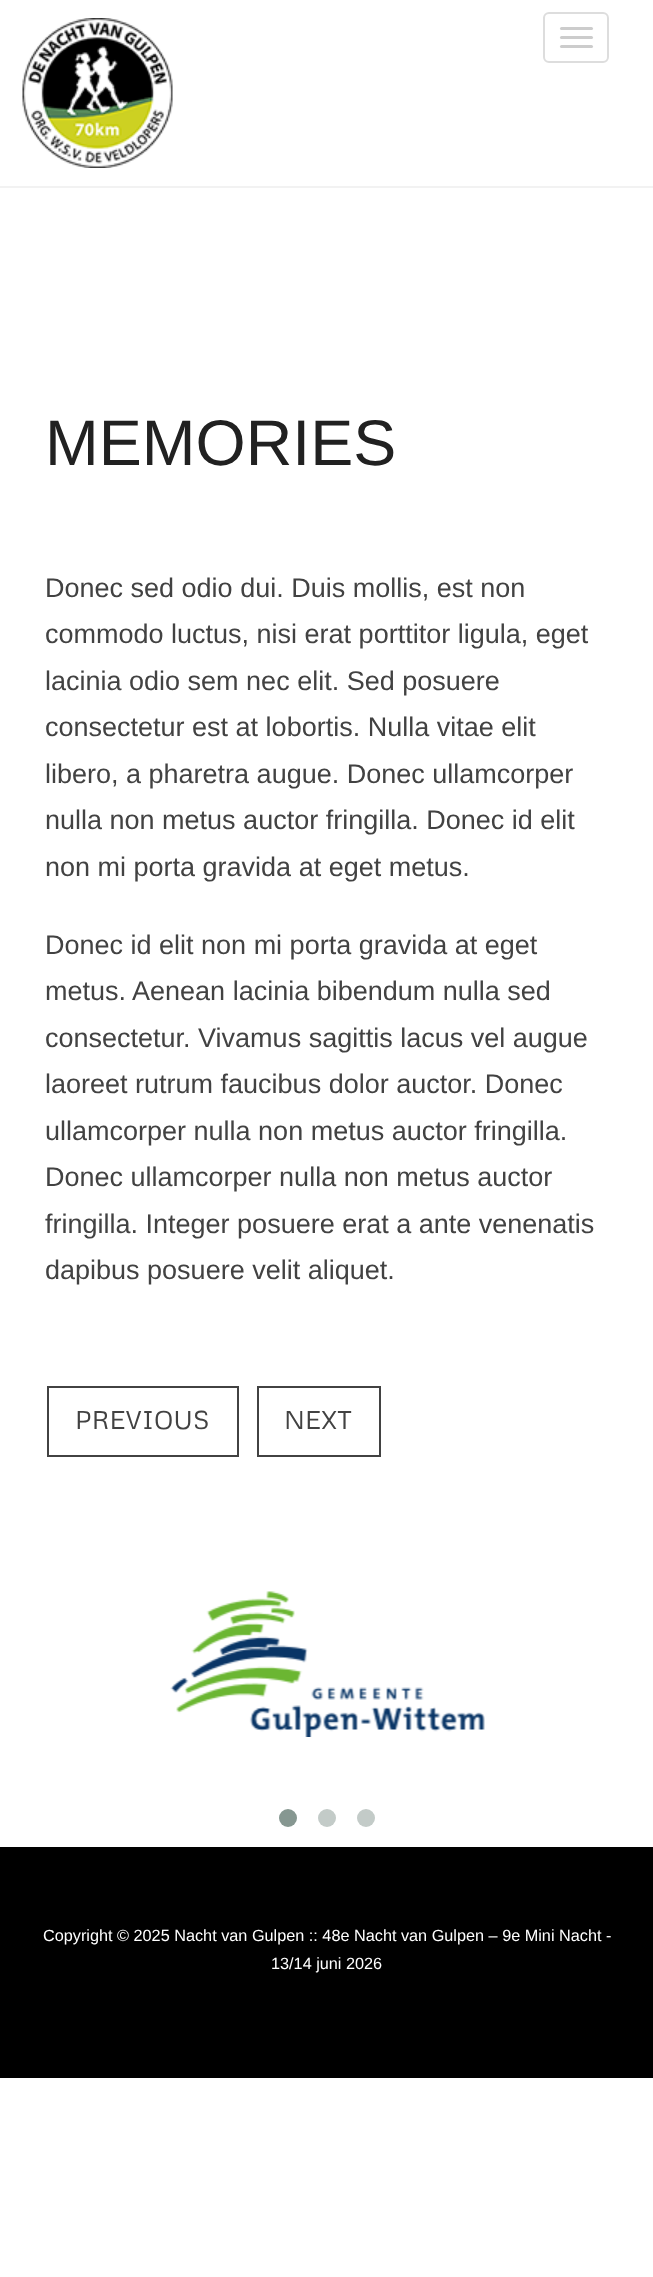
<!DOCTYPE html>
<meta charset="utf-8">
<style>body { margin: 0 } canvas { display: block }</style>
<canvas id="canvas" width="653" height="2277"></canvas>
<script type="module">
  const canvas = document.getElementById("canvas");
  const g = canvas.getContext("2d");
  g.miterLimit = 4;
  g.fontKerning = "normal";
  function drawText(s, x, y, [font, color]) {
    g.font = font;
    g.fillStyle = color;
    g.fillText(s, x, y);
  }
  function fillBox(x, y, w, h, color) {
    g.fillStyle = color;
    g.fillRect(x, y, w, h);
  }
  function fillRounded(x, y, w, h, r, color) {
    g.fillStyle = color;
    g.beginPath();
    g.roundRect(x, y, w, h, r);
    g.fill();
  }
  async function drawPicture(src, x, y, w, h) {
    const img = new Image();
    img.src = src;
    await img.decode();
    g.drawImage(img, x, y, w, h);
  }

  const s1 = ["64.5px Liberation Sans", "#212121"];
  const s2 = ["27px Liberation Sans", "#424242"];
  const s3 = ["25.5px Metrophobic", "#424242"];
  const s4 = ["16.25px Liberation Sans", "#FFFFFF"];

  fillBox(0, 0, 653, 2277, "#FFFFFF");
  g.strokeStyle = "#F2F2F2";
  g.lineWidth = 2;
  g.strokeRect(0, 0, 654, 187);
  fillBox(0, 0, 653, 186, "#FFFFFF");
  await drawPicture("pic1.png", 22, 18, 151, 150);
  g.beginPath();
  g.roundRect(544, 13, 64, 49, 5);
  g.strokeStyle = "#DDDDDD";
  g.stroke();
  fillRounded(560, 27, 33, 3, 1.5, "#CCCCCC");
  fillRounded(560, 36, 33, 3, 1.5, "#CCCCCC");
  fillRounded(560, 45, 33, 3, 1.5, "#CCCCCC");
  drawText("MEMORIES", 45, 465, s1);
  drawText("Donec sed odio dui. Duis mollis, est non", 45, 597, s2);
  drawText("commodo luctus, nisi erat porttitor ligula, eget", 45, 643, s2);
  drawText("lacinia odio sem nec elit. Sed posuere", 45, 690, s2);
  drawText("consectetur est at lobortis. Nulla vitae elit", 45, 736, s2);
  drawText("libero, a pharetra augue. Donec ullamcorper", 45, 783, s2);
  drawText("nulla non metus auctor fringilla. Donec id elit", 45, 829, s2);
  drawText("non mi porta gravida at eget metus.", 45, 876, s2);
  drawText("Donec id elit non mi porta gravida at eget", 45, 954, s2);
  drawText("metus. Aenean lacinia bibendum nulla sed", 45, 1000, s2);
  drawText("consectetur. Vivamus sagittis lacus vel augue", 45, 1047, s2);
  drawText("laoreet rutrum faucibus dolor auctor. Donec", 45, 1093, s2);
  drawText("ullamcorper nulla non metus auctor fringilla.", 45, 1140, s2);
  drawText("Donec ullamcorper nulla non metus auctor", 45, 1186, s2);
  drawText("fringilla. Integer posuere erat a ante venenatis", 45, 1233, s2);
  drawText("dapibus posuere velit aliquet.", 45, 1279, s2);
  g.strokeStyle = "#424242";
  g.strokeRect(48, 1387, 190, 69);
  drawText("PREVIOUS", 75, 1429, s3);
  g.strokeRect(258, 1387, 122, 69);
  drawText("NEXT", 284, 1429, s3);
  await drawPicture("pic2.png", 170, 1591, 315, 146);
  g.fillStyle = "#869791";
  g.beginPath();
  g.arc(288, 1818, 9, 0, Math.PI * 2);
  g.fill();
  g.fillStyle = "#C3CBC8";
  g.beginPath();
  g.arc(327, 1818, 9, 0, Math.PI * 2);
  g.fill();
  g.beginPath();
  g.arc(366, 1818, 9, 0, Math.PI * 2);
  g.fill();
  fillBox(0, 1847, 653, 231, "#000000");
  drawText("Copyright © 2025 Nacht van Gulpen :: 48e Nacht van Gulpen – 9e Mini Nacht -", 43, 1941, s4);
  drawText("13/14 juni 2026", 271, 1969, s4);
</script>
